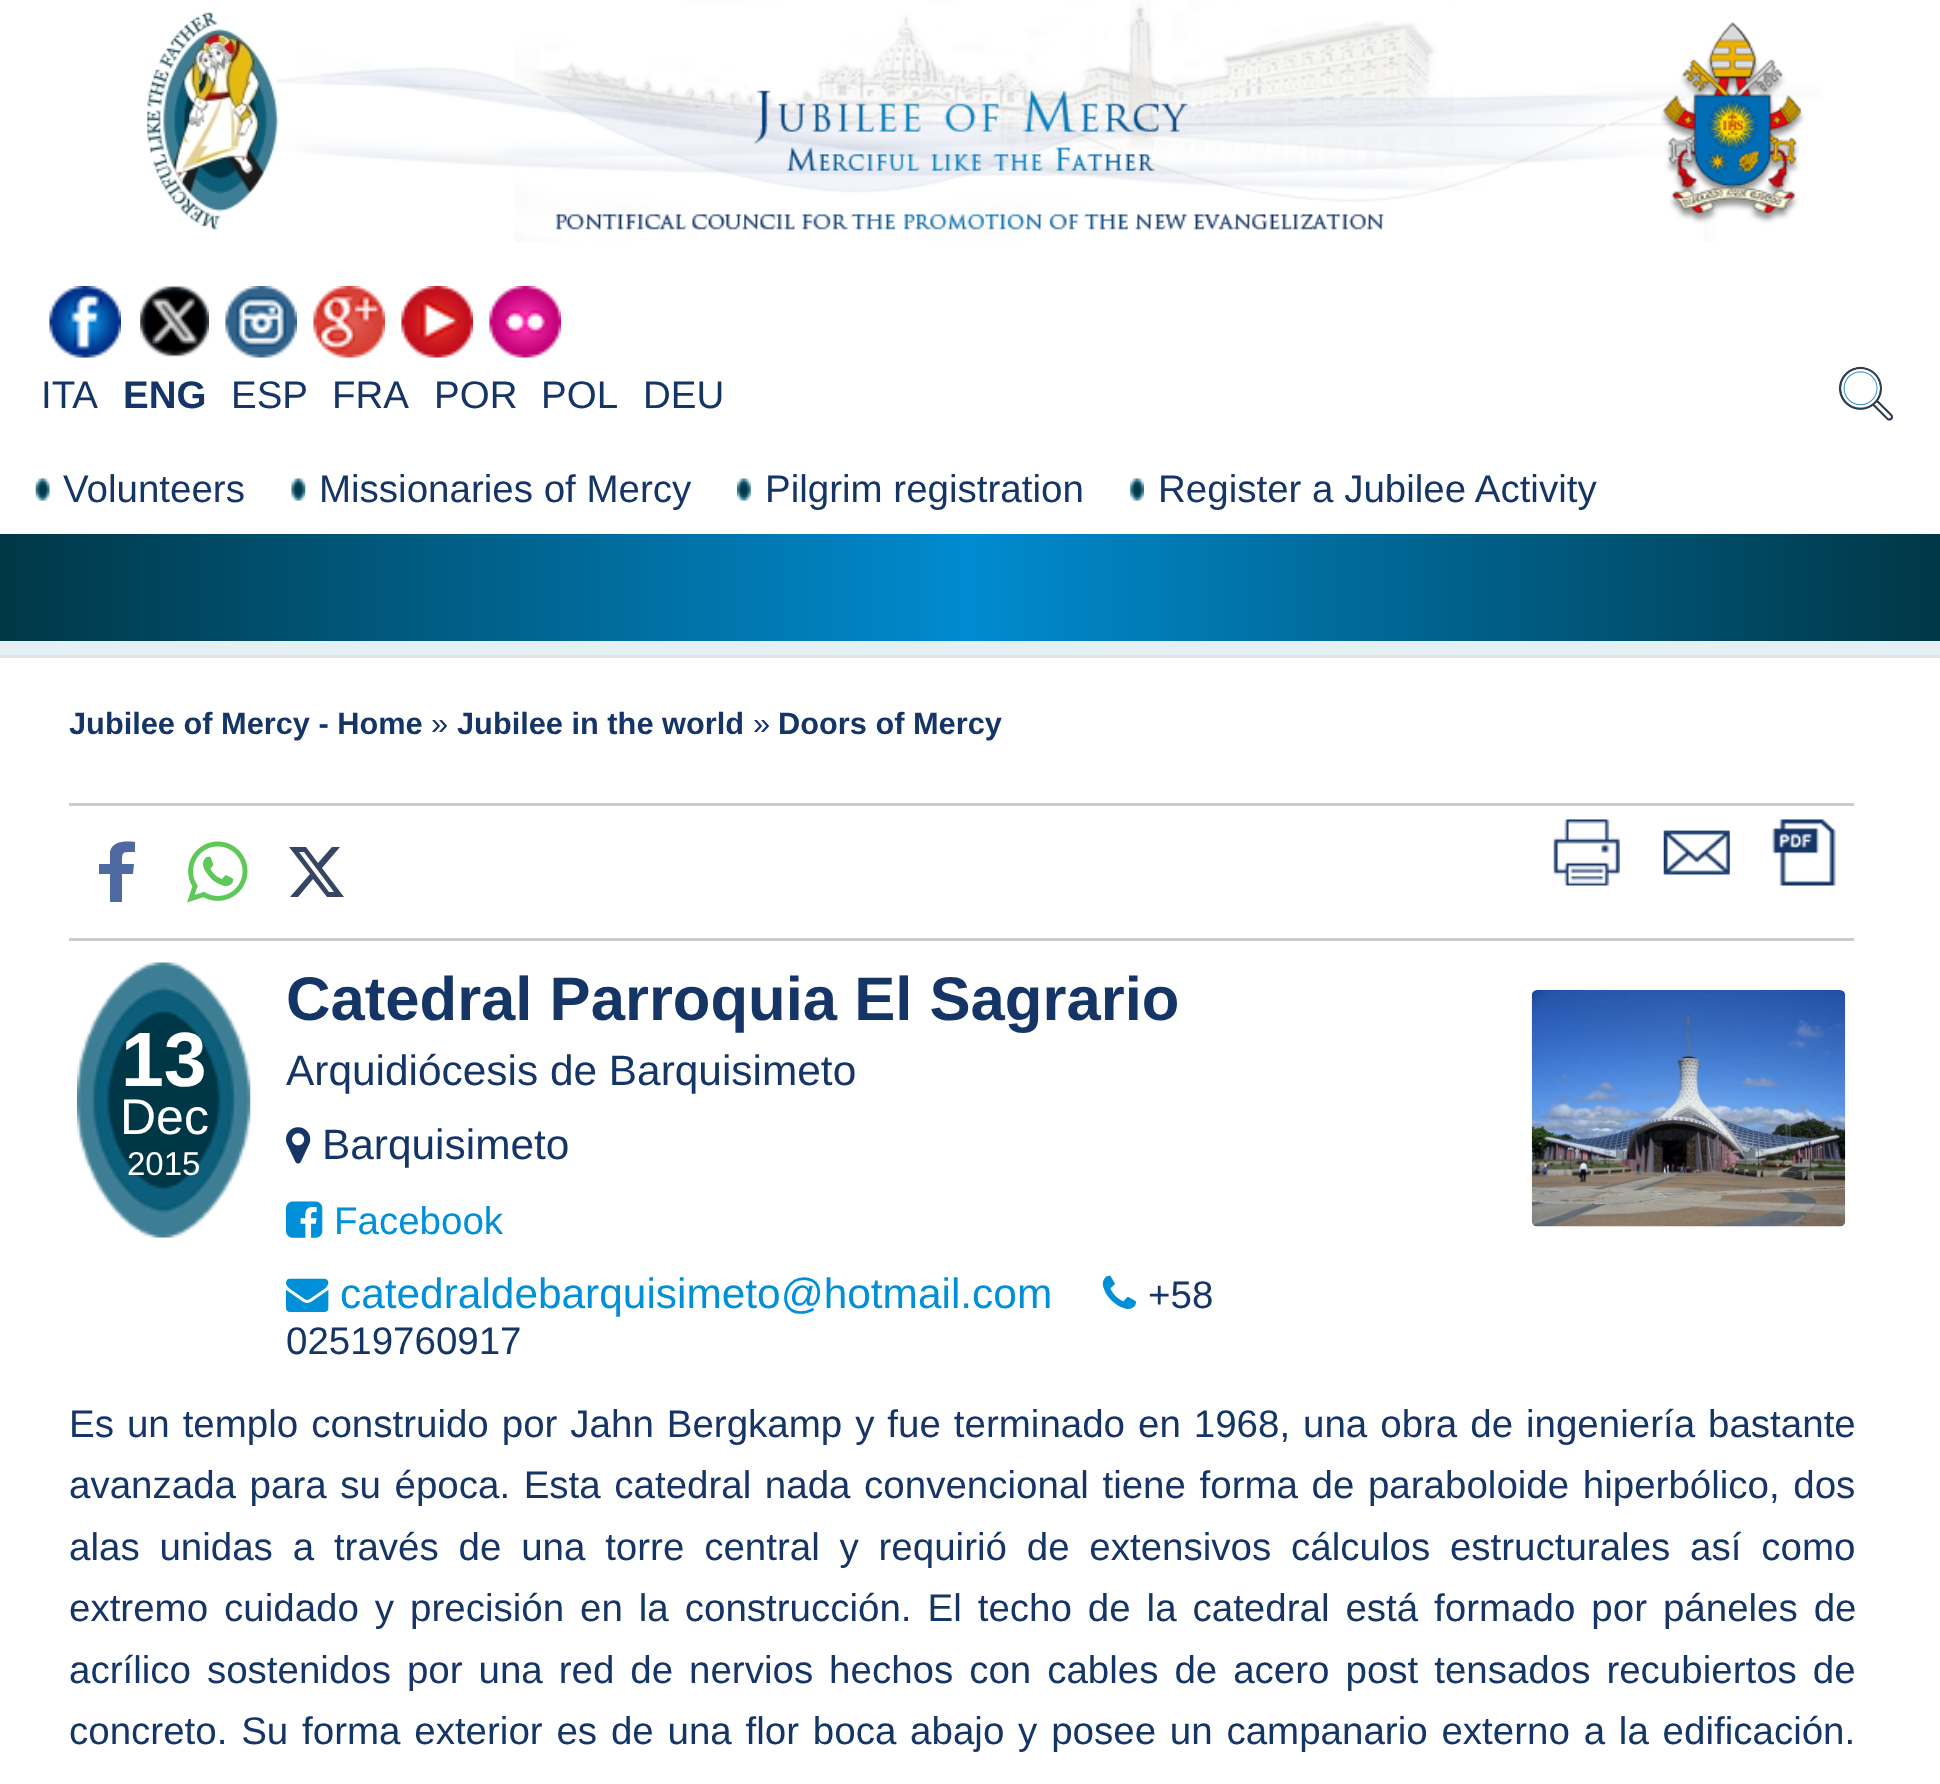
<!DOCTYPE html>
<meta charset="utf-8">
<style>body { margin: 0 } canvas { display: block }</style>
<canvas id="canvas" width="1940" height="1784"></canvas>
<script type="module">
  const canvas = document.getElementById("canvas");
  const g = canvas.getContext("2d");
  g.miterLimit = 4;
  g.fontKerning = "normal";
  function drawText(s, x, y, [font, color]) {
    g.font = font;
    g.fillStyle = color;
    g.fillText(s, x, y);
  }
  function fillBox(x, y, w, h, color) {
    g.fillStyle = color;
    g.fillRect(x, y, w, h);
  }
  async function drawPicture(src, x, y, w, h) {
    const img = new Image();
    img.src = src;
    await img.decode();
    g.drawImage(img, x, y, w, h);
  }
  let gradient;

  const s1 = ["38.5px Liberation Sans", "#153567"];
  const s2 = ["bold 38.5px Liberation Sans", "#153567"];
  const s3 = ["bold 30.75px Liberation Sans", "#153567"];
  const s4 = ["30.75px Liberation Sans", "#153567"];
  const s5 = ["bold 77px Liberation Sans", "#FFFFFF"];
  const s6 = ["50px Liberation Sans", "#FFFFFF"];
  const s7 = ["33px Liberation Sans", "#FFFFFF"];
  const s8 = ["bold 61.6px Liberation Sans", "#153567"];
  const s9 = ["42.4px Liberation Sans", "#153567"];
  const s10 = ["38.5px Liberation Sans", "#008FD9"];
  const s11 = ["42.4px Liberation Sans", "#008FD9"];

  fillBox(0, 0, 1940, 1784, "#E5F0F5");
  fillBox(0, 0, 1940, 534, "#FFFFFF");
  await drawPicture("pic1.png", 147, 0, 1674, 242);
  await drawPicture("pic2.png", 49, 286, 72, 72);
  await drawPicture("pic3.png", 140, 286, 69, 71);
  await drawPicture("pic4.png", 225, 286, 72, 72);
  await drawPicture("pic5.png", 313, 286, 72, 72);
  await drawPicture("pic6.png", 401, 286, 72, 72);
  await drawPicture("pic7.png", 489, 286, 72, 72);
  drawText("ITA", 41, 408, s1);
  drawText("ENG", 123, 408, s2);
  drawText("ESP", 231, 408, s1);
  drawText("FRA", 332, 408, s1);
  drawText("POR", 434, 408, s1);
  drawText("POL", 541, 408, s1);
  drawText("DEU", 643, 408, s1);
  await drawPicture("pic8.png", 1838, 366, 56, 55);
  await drawPicture("pic9.png", 35, 478, 15, 23);
  drawText("Volunteers", 63, 502, s1);
  await drawPicture("pic10.png", 291, 478, 15, 23);
  drawText("Missionaries of Mercy", 319, 502, s1);
  await drawPicture("pic11.png", 737, 478, 14, 23);
  drawText("Pilgrim registration", 765, 502, s1);
  await drawPicture("pic12.png", 1130, 478, 14, 23);
  drawText("Register a Jubilee Activity", 1158, 502, s1);
  gradient = g.createLinearGradient(0, 587, 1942, 587);
  gradient.addColorStop(0, "#003746");
  gradient.addColorStop(0.5, "#008BD0");
  gradient.addColorStop(1, "#003746");
  g.fillStyle = gradient;
  g.fillRect(0, 534, 1940, 107);
  fillBox(0, 658, 1940, 1126, "#FFFFFF");
  fillBox(0, 655, 1940, 3, "#E3E3E3");
  drawText("Jubilee of Mercy - Home", 69, 734, s3);
  drawText("»", 431, 734, s4);
  drawText("Jubilee in the world", 457, 734, s3);
  drawText("»", 753, 734, s4);
  drawText("Doors of Mercy", 778, 734, s3);
  fillBox(69, 803, 1785, 3, "#CCCCCC");
  fillBox(69, 938, 1785, 3, "#CCCCCC");
  g.fillStyle = "#4F6AA2";
  g.beginPath();
  g.moveTo(135, 842);
  g.bezierCurveTo(125, 841, 112, 841, 110, 852);
  g.lineTo(110, 864);
  g.lineTo(99, 864);
  g.lineTo(99, 874);
  g.lineTo(110, 874);
  g.lineTo(110, 902);
  g.lineTo(122, 902);
  g.lineTo(122, 874);
  g.lineTo(133, 874);
  g.lineTo(134, 864);
  g.lineTo(122, 864);
  g.bezierCurveTo(122, 851, 122, 852, 135, 852);
  g.closePath();
  g.fill("evenodd");
  await drawPicture("pic13.png", 187, 841, 61, 62);
  g.fillStyle = "#354562";
  g.beginPath();
  g.moveTo(332, 847);
  g.lineTo(340, 847);
  g.lineTo(322, 868);
  g.lineTo(344, 897);
  g.lineTo(327, 897);
  g.lineTo(313, 879);
  g.lineTo(298, 897);
  g.lineTo(290, 897);
  g.lineTo(310, 874);
  g.lineTo(289, 847);
  g.lineTo(306, 847);
  g.lineTo(318, 863);
  g.closePath();
  g.moveTo(329, 892);
  g.lineTo(334, 892);
  g.lineTo(304, 852);
  g.lineTo(299, 852);
  g.closePath();
  g.fill("evenodd");
  await drawPicture("pic14.png", 1553, 819, 67, 67);
  await drawPicture("pic15.png", 1663, 830, 67, 45);
  await drawPicture("pic16.png", 1772, 819, 64, 67);
  await drawPicture("pic17.png", 77, 962, 174, 276);
  drawText("13", 121, 1086, s5);
  drawText("Dec", 120, 1134, s6);
  drawText("2015", 127, 1175, s7);
  drawText("Catedral Parroquia El Sagrario", 286, 1020, s8);
  drawText("Arquidiócesis de Barquisimeto", 286, 1085, s9);
  await drawPicture("pic18.png", 1531, 990, 315, 237);
  await drawPicture("pic19.png", 286, 1127, 25, 37);
  drawText("Barquisimeto", 322, 1159, s9);
  await drawPicture("pic20.png", 286, 1201, 37, 37);
  drawText("Facebook", 334, 1234, s10);
  await drawPicture("pic21.png", 286, 1278, 43, 34);
  drawText("catedraldebarquisimeto@hotmail.com", 340, 1308, s11);
  await drawPicture("pic22.png", 1102, 1275, 34, 34);
  drawText("+58", 1148, 1308, s1);
  drawText("02519760917", 286, 1354, s1);
  g.wordSpacing = "2.25px";
  drawText("Es un templo construido por Jahn Bergkamp y fue terminado en 1968, una obra de ingeniería bastante", 69, 1437, s1);
  g.wordSpacing = "2.9px";
  drawText("avanzada para su época. Esta catedral nada convencional tiene forma de paraboloide hiperbólico, dos", 69, 1498, s1);
  g.wordSpacing = "9.1px";
  drawText("alas unidas a través de una torre central y requirió de extensivos cálculos estructurales así como", 69, 1560, s1);
  g.wordSpacing = "5.25px";
  drawText("extremo cuidado y precisión en la construcción. El techo de la catedral está formado por páneles de", 69, 1621, s1);
  drawText("acrílico sostenidos por una red de nervios hechos con cables de acero post tensados recubiertos de", 69, 1683, s1);
  g.wordSpacing = "3.1px";
  drawText("concreto. Su forma exterior es de una flor boca abajo y posee un campanario externo a la edificación.", 69, 1744, s1);
</script>
